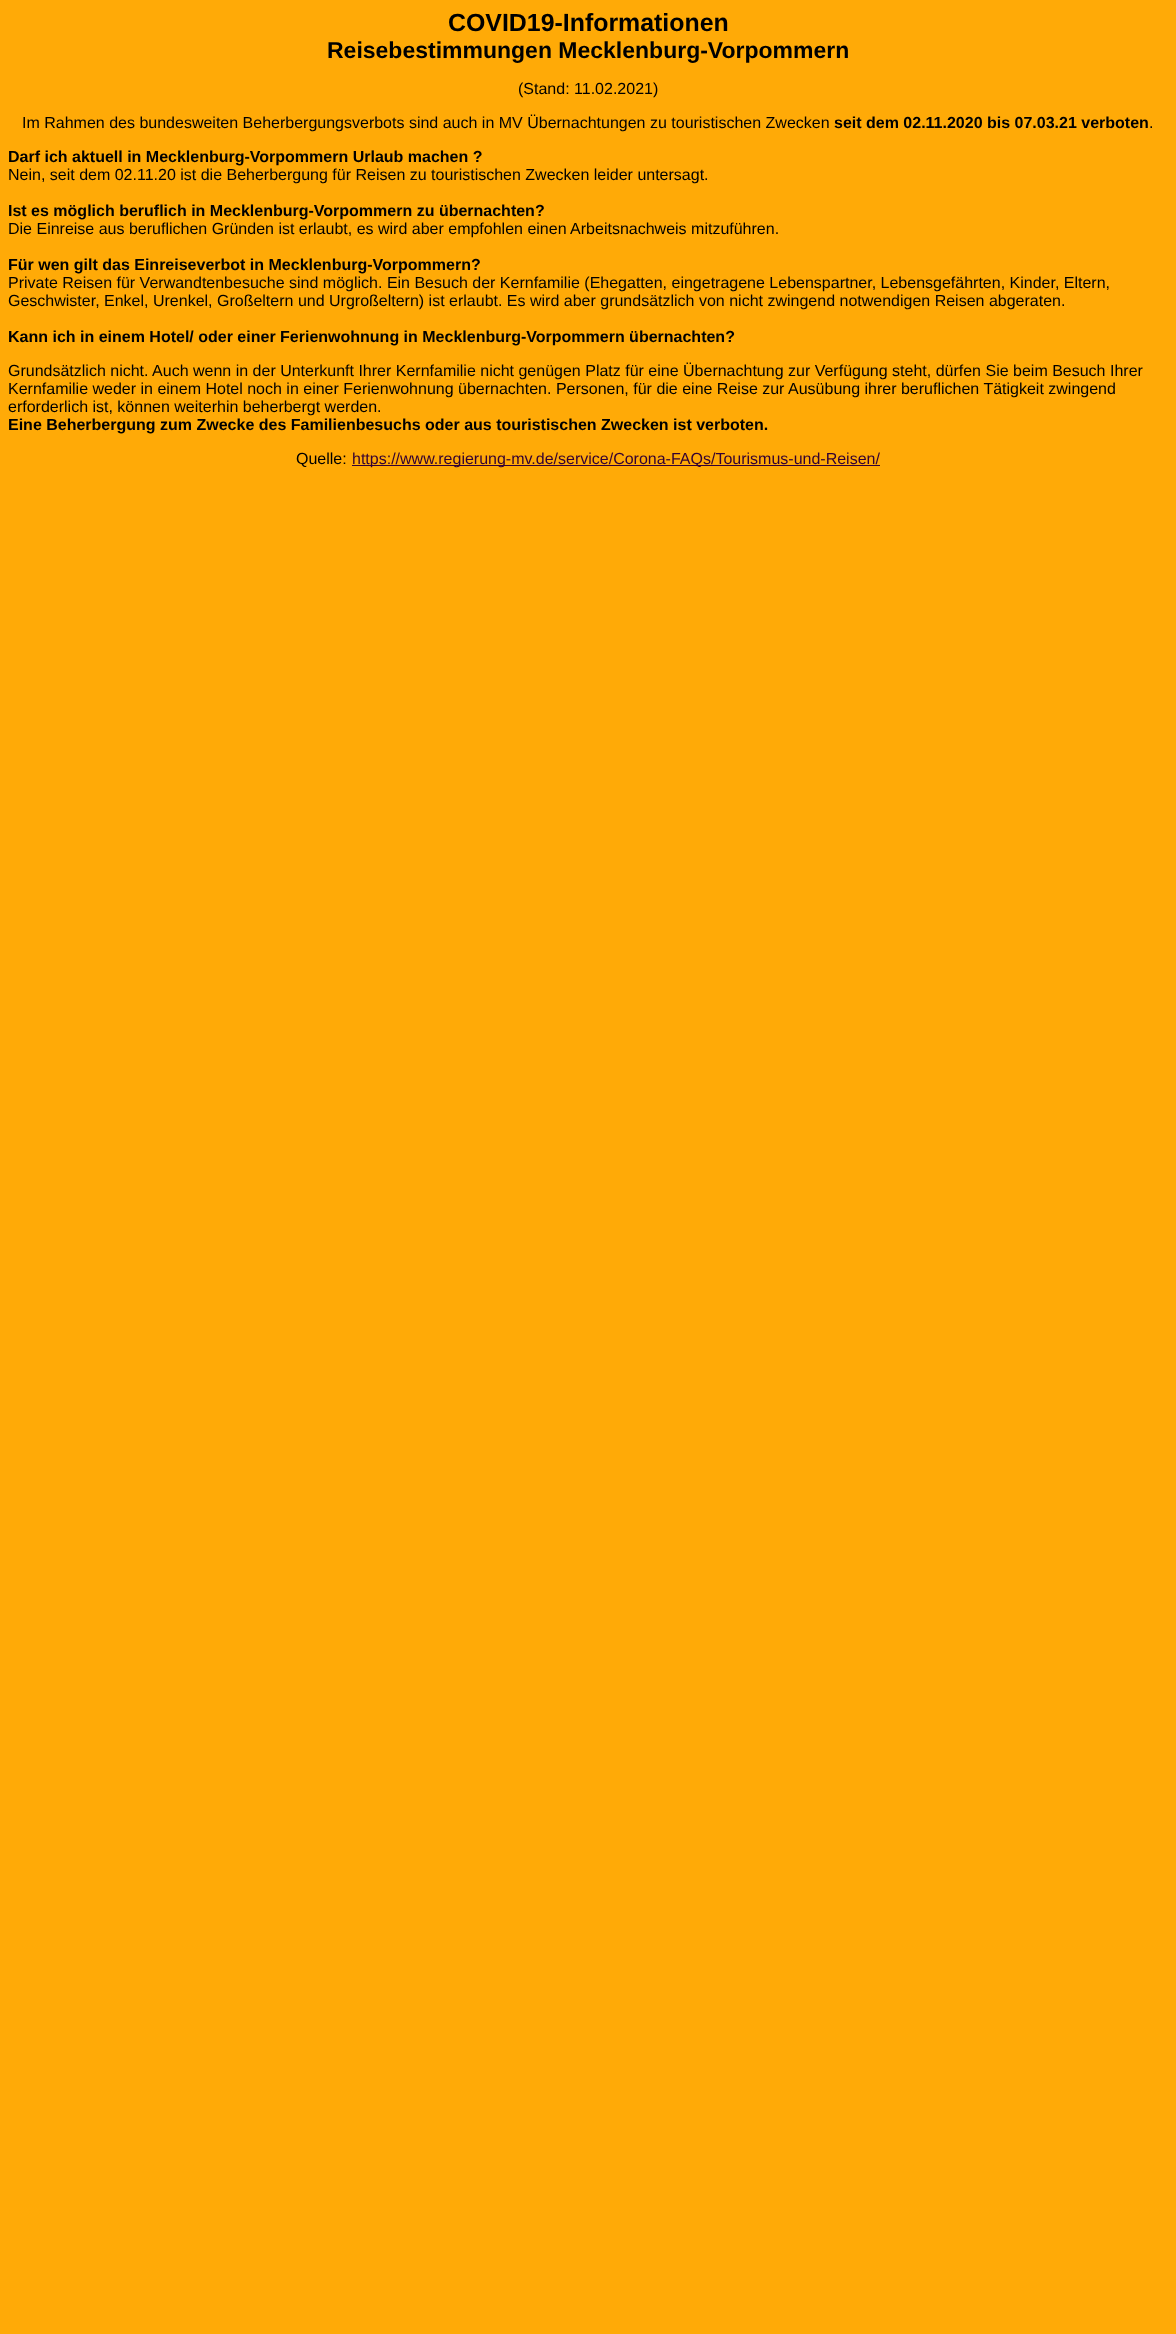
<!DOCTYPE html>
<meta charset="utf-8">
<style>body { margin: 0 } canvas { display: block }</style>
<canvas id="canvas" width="1176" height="2334"></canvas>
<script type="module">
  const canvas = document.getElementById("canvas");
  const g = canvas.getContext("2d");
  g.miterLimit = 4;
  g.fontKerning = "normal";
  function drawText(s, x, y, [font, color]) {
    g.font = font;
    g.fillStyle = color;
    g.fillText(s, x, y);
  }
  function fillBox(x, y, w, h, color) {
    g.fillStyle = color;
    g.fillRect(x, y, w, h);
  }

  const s1 = ["bold 24.9px Liberation Sans", "#000000"];
  const s2 = ["bold 23px Liberation Sans", "#000000"];
  const s3 = ["16px Liberation Sans", "#000000"];
  const s4 = ["bold 16px Liberation Sans", "#000000"];
  const s5 = ["16px Liberation Sans", "#330033"];

  fillBox(0, 0, 1176, 2334, "#FFAA07");
  drawText("COVID19-Informationen", 448, 31, s1);
  drawText("Reisebestimmungen Mecklenburg-Vorpommern", 327, 58, s2);
  drawText("(Stand: 11.02.2021)", 518, 94, s3);
  drawText("Im Rahmen des bundesweiten Beherbergungsverbots sind auch in MV Übernachtungen zu touristischen Zwecken", 22, 128, s3);
  drawText("seit dem 02.11.2020 bis 07.03.21 verboten", 834, 128, s4);
  drawText(".", 1149, 128, s3);
  drawText("Darf ich aktuell in Mecklenburg-Vorpommern Urlaub machen ?", 8, 162, s4);
  drawText("Nein, seit dem 02.11.20 ist die Beherbergung für Reisen zu touristischen Zwecken leider untersagt.", 8, 180, s3);
  drawText("Ist es möglich beruflich in Mecklenburg-Vorpommern zu übernachten?", 8, 216, s4);
  drawText("Die Einreise aus beruflichen Gründen ist erlaubt, es wird aber empfohlen einen Arbeitsnachweis mitzuführen.", 8, 234, s3);
  drawText("Für wen gilt das Einreiseverbot in Mecklenburg-Vorpommern?", 8, 270, s4);
  drawText("Private Reisen für Verwandtenbesuche sind möglich. Ein Besuch der Kernfamilie (Ehegatten, eingetragene Lebenspartner, Lebensgefährten, Kinder, Eltern,", 8, 288, s3);
  drawText("Geschwister, Enkel, Urenkel, Großeltern und Urgroßeltern) ist erlaubt. Es wird aber grundsätzlich von nicht zwingend notwendigen Reisen abgeraten.", 8, 306, s3);
  drawText("Kann ich in einem Hotel/ oder einer Ferienwohnung in Mecklenburg-Vorpommern übernachten?", 8, 342, s4);
  drawText("Grundsätzlich nicht. Auch wenn in der Unterkunft Ihrer Kernfamilie nicht genügen Platz für eine Übernachtung zur Verfügung steht, dürfen Sie beim Besuch Ihrer", 8, 376, s3);
  drawText("Kernfamilie weder in einem Hotel noch in einer Ferienwohnung übernachten. Personen, für die eine Reise zur Ausübung ihrer beruflichen Tätigkeit zwingend", 8, 394, s3);
  drawText("erforderlich ist, können weiterhin beherbergt werden.", 8, 412, s3);
  drawText("Eine Beherbergung zum Zwecke des Familienbesuchs oder aus touristischen Zwecken ist verboten.", 8, 430, s4);
  drawText("Quelle:", 296, 464, s3);
  fillBox(352, 465, 528, 1, "#330033");
  drawText("https://www.regierung-mv.de/service/Corona-FAQs/Tourismus-und-Reisen/", 352, 464, s5);
</script>
